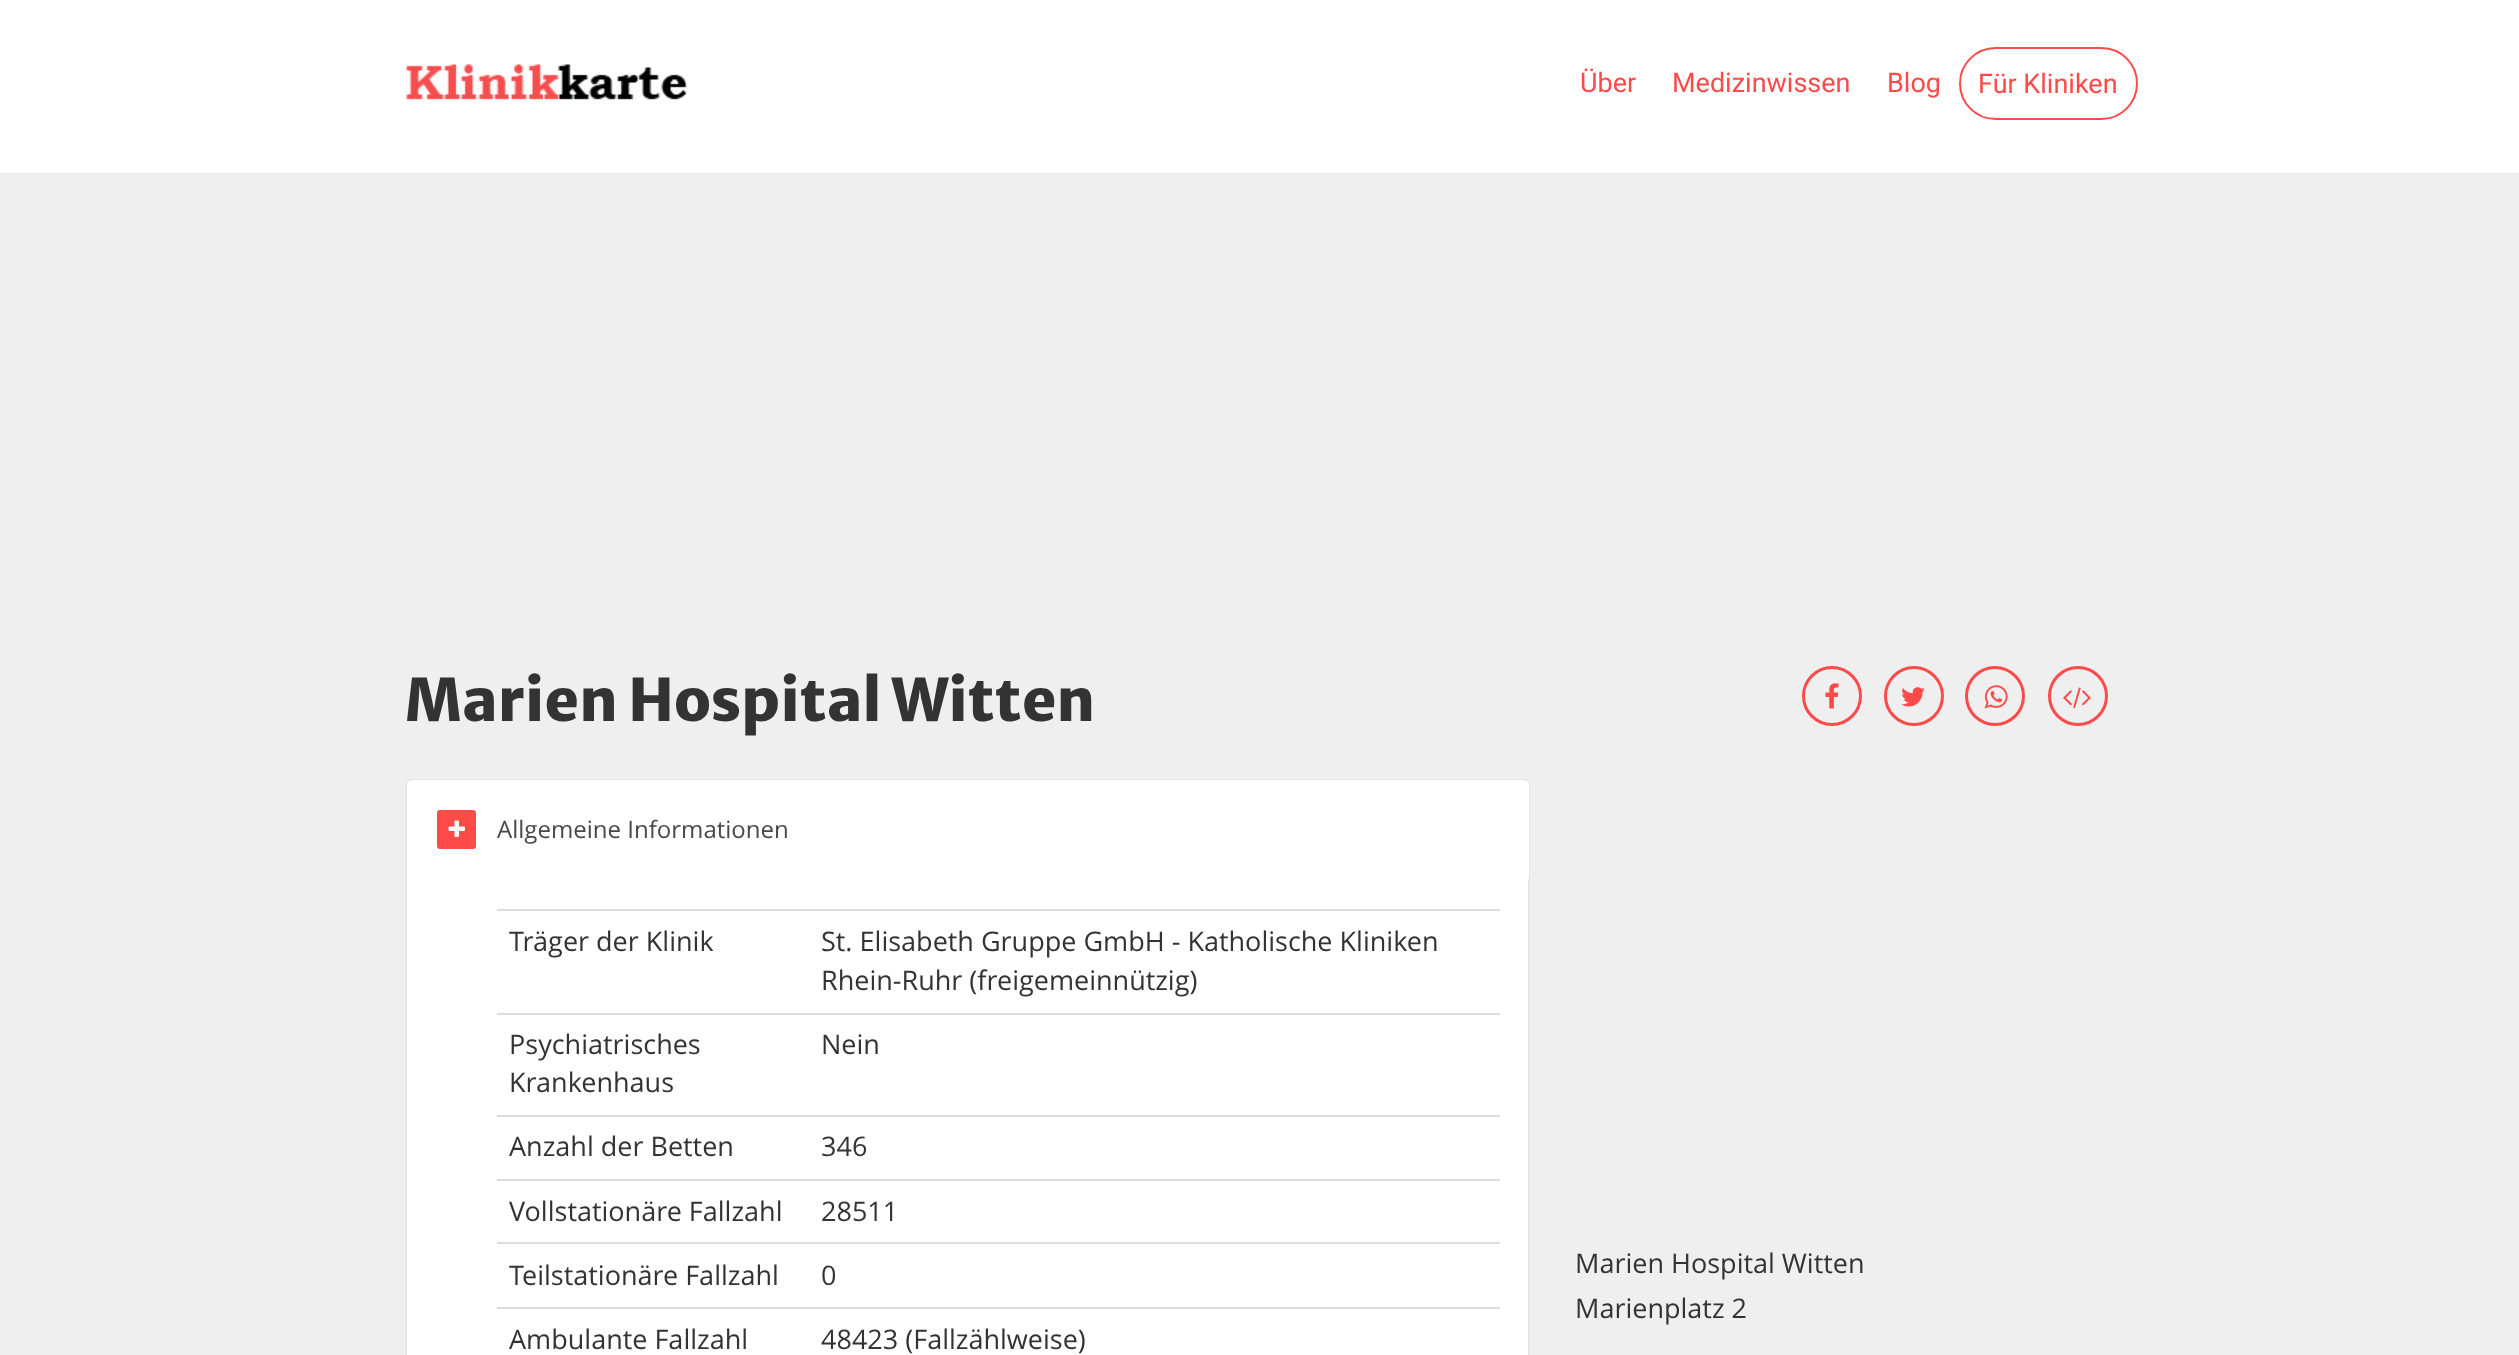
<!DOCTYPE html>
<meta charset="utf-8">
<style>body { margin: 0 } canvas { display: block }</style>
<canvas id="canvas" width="2519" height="1355"></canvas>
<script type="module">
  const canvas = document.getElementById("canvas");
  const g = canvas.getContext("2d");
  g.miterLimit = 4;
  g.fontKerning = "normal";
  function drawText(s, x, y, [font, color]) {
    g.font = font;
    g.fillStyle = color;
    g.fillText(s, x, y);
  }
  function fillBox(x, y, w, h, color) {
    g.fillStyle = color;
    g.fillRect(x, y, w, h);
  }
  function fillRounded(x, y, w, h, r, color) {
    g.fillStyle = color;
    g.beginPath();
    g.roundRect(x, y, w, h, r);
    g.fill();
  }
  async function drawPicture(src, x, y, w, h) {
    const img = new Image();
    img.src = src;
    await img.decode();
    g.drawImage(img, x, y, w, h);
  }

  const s1 = ["27px Roboto", "#FF4A4A"];
  const s2 = ["800 58.5px Merriweather Sans", "#333333"];
  const s3 = ["24px Open Sans", "#484848"];
  const s4 = ["27px Open Sans", "#333333"];

  fillBox(0, 0, 2519, 1355, "#EFEFEF");
  fillBox(0, 0, 2519, 173, "#FFFFFF");
  await drawPicture("pic1.png", 406, 64, 281, 36);
  drawText("Über", 1580, 92, s1);
  drawText("Medizinwissen", 1672, 92, s1);
  drawText("Blog", 1887, 92, s1);
  g.beginPath();
  g.roundRect(1960, 48, 177, 71, 35.5);
  g.strokeStyle = "#FF4A4A";
  g.lineWidth = 2;
  g.stroke();
  drawText("Für Kliniken", 1978, 93, s1);
  drawText("Marien Hospital Witten", 405, 721, s2);
  g.beginPath();
  g.arc(1832, 696, 28.5, 0, Math.PI * 2);
  g.lineWidth = 3;
  g.stroke();
  await drawPicture("pic2.png", 1825, 683, 14, 26);
  g.beginPath();
  g.arc(1914, 696, 28.5, 0, Math.PI * 2);
  g.stroke();
  await drawPicture("pic3.png", 1901, 687, 24, 20);
  g.beginPath();
  g.arc(1995, 696, 28.5, 0, Math.PI * 2);
  g.stroke();
  await drawPicture("pic4.png", 1984, 685, 24, 24);
  g.beginPath();
  g.arc(2078, 696, 28.5, 0, Math.PI * 2);
  g.stroke();
  await drawPicture("pic5.png", 2063, 687, 28, 22);
  g.fillStyle = "#FFFFFF";
  g.beginPath();
  g.moveTo(411, 780);
  g.lineTo(1524, 780);
  g.bezierCurveTo(1527, 780, 1529, 782, 1529, 785);
  g.lineTo(1529, 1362);
  g.lineTo(406, 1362);
  g.lineTo(406, 785);
  g.bezierCurveTo(406, 782, 408, 780, 411, 780);
  g.closePath();
  g.fill();
  g.strokeStyle = "#E4E5E7";
  g.lineWidth = 2;
  g.stroke();
  g.beginPath();
  g.roundRect(407, 780, 1122, 99, [5, 5, 0, 0]);
  g.fill();
  fillRounded(437, 810, 39, 39, 3, "#FF4A4A");
  await drawPicture("pic6.png", 448, 820, 17, 17);
  drawText("Allgemeine Informationen", 497, 838, s3);
  drawText("Träger der Klinik", 509, 951, s4);
  fillBox(497, 909, 1003, 2, "#DDDDDD");
  drawText("St. Elisabeth Gruppe GmbH - Katholische Kliniken", 821, 951, s4);
  drawText("Rhein-Ruhr (freigemeinnützig)", 821, 990, s4);
  drawText("Psychiatrisches", 509, 1054, s4);
  drawText("Krankenhaus", 509, 1092, s4);
  fillBox(497, 1013, 1003, 2, "#DDDDDD");
  drawText("Nein", 821, 1054, s4);
  drawText("Anzahl der Betten", 509, 1156, s4);
  fillBox(497, 1115, 1003, 2, "#DDDDDD");
  drawText("346", 821, 1156, s4);
  drawText("Vollstationäre Fallzahl", 509, 1221, s4);
  fillBox(497, 1179, 1003, 2, "#DDDDDD");
  drawText("28511", 821, 1221, s4);
  drawText("Teilstationäre Fallzahl", 509, 1285, s4);
  fillBox(497, 1242, 1003, 2, "#DDDDDD");
  drawText("0", 821, 1285, s4);
  drawText("Ambulante Fallzahl", 509, 1349, s4);
  fillBox(497, 1307, 1003, 2, "#DDDDDD");
  drawText("48423 (Fallzählweise)", 821, 1349, s4);
  drawText("Marien Hospital Witten", 1575, 1273, s4);
  drawText("Marienplatz 2", 1575, 1318, s4);
</script>
